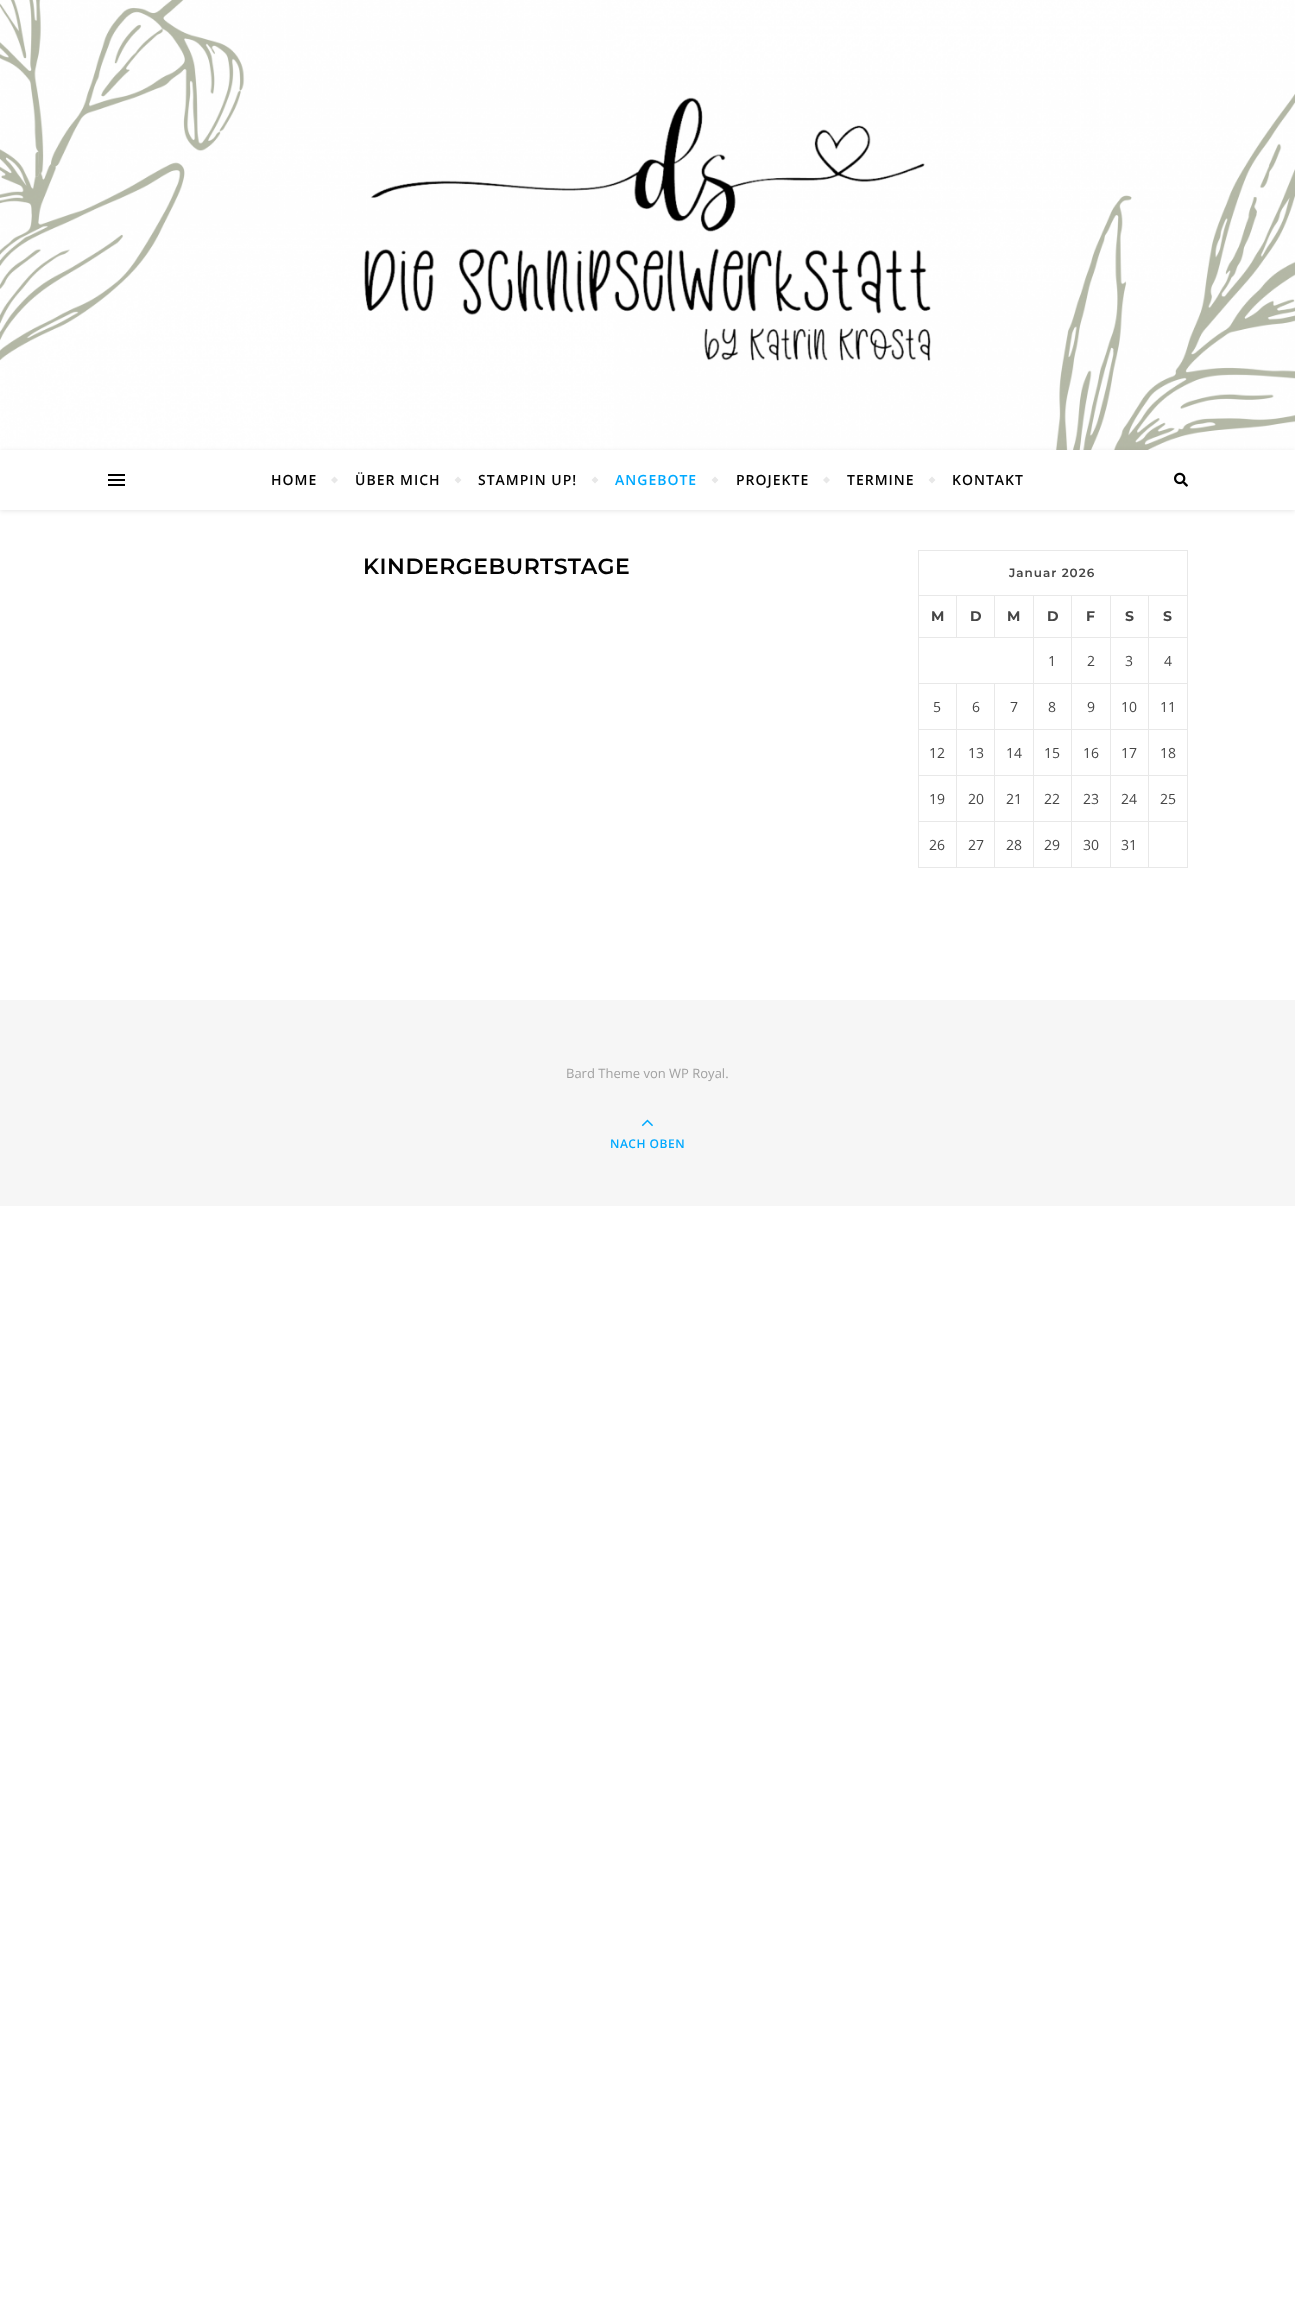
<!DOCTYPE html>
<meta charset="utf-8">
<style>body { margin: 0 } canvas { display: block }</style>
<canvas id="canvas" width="1295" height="2309"></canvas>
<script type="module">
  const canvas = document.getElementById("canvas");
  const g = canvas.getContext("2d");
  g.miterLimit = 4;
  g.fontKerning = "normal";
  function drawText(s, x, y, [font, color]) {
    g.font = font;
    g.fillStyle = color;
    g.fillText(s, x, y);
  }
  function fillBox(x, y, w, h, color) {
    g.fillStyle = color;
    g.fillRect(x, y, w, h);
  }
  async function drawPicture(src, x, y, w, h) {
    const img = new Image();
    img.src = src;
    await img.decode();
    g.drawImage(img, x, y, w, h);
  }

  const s1 = ["600 14px Open Sans", "#030303"];
  const s2 = ["600 14px Open Sans", "#00A9FF"];
  const s3 = ["600 22px Montserrat", "#030303"];
  const s4 = ["600 12px Montserrat", "#464646"];
  const s5 = ["bold 14px Montserrat", "#464646"];
  const s6 = ["14px Open Sans", "#464646"];
  const s7 = ["13px Open Sans", "#A1A1A1"];
  const s8 = ["600 12px Open Sans", "#00A9FF"];

  fillBox(0, 0, 1295, 2309, "#FFFFFF");
  await drawPicture("pic1.png", 0, 0, 1295, 450);
  g.save();
  g.beginPath();
  g.moveTo(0, 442);
  g.lineTo(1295, 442);
  g.lineTo(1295, 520);
  g.lineTo(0, 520);
  g.closePath();
  g.moveTo(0, 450);
  g.lineTo(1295, 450);
  g.lineTo(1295, 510);
  g.lineTo(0, 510);
  g.closePath();
  g.clip("evenodd");
  g.fillStyle = "rgba(0, 0, 0, 0.1)";
  g.filter = "blur(2.5px)";
  g.beginPath();
  g.rect(0, 451, 1295, 60);
  g.fill();
  g.filter = "none";
  g.restore();
  fillBox(108, 474, 17, 2, "#000000");
  fillBox(108, 479, 17, 2, "#000000");
  fillBox(108, 484, 17, 2, "#000000");
  g.letterSpacing = "1px";
  drawText("HOME", 271, 485, s1);
  g.fillStyle = "#E8E8E8";
  g.beginPath();
  g.moveTo(331, 480);
  g.lineTo(334.5, 476.5);
  g.lineTo(338, 480);
  g.lineTo(334.5, 483.5);
  g.closePath();
  g.fill();
  drawText("ÜBER MICH", 355, 485, s1);
  g.fillStyle = "#E8E8E8";
  g.beginPath();
  g.moveTo(454.5, 480);
  g.lineTo(458, 476.5);
  g.lineTo(461.5, 480);
  g.lineTo(458, 483.5);
  g.closePath();
  g.fill();
  drawText("STAMPIN UP!", 478, 485, s1);
  g.fillStyle = "#E8E8E8";
  g.beginPath();
  g.moveTo(591.5, 480);
  g.lineTo(595, 476.5);
  g.lineTo(598.5, 480);
  g.lineTo(595, 483.5);
  g.closePath();
  g.fill();
  drawText("ANGEBOTE", 615, 485, s2);
  g.fillStyle = "#E8E8E8";
  g.beginPath();
  g.moveTo(711.5, 480);
  g.lineTo(715, 476.5);
  g.lineTo(718.5, 480);
  g.lineTo(715, 483.5);
  g.closePath();
  g.fill();
  drawText("PROJEKTE", 736, 485, s1);
  g.fillStyle = "#E8E8E8";
  g.beginPath();
  g.moveTo(823, 480);
  g.lineTo(826.5, 476.5);
  g.lineTo(830, 480);
  g.lineTo(826.5, 483.5);
  g.closePath();
  g.fill();
  drawText("TERMINE", 847, 485, s1);
  g.fillStyle = "#E8E8E8";
  g.beginPath();
  g.moveTo(928.5, 480);
  g.lineTo(932, 476.5);
  g.lineTo(935.5, 480);
  g.lineTo(932, 483.5);
  g.closePath();
  g.fill();
  drawText("KONTAKT", 952, 485, s1);
  await drawPicture("pic2.png", 1174, 472, 14, 15);
  g.letterSpacing = "0.5px";
  drawText("KINDERGEBURTSTAGE", 363, 574, s3);
  fillBox(918, 550, 270, 1, "#E8E8E8");
  fillBox(1187, 550, 1, 318, "#E8E8E8");
  fillBox(918, 867, 270, 1, "#E8E8E8");
  fillBox(918, 550, 1, 318, "#E8E8E8");
  g.letterSpacing = "1px";
  drawText("Januar 2026", 1009, 577, s4);
  fillBox(918, 595, 270, 1, "#E8E8E8");
  g.letterSpacing = "0px";
  drawText("M", 931, 621, s5);
  fillBox(918, 637, 270, 1, "#E8E8E8");
  fillBox(956, 595, 1, 43, "#E8E8E8");
  drawText("D", 970, 621, s5);
  fillBox(994, 595, 1, 43, "#E8E8E8");
  drawText("M", 1007, 621, s5);
  drawText("D", 1047, 621, s5);
  drawText("F", 1086, 621, s5);
  drawText("S", 1125, 621, s5);
  drawText("S", 1163, 621, s5);
  drawText("1", 1048, 666, s6);
  drawText("2", 1087, 666, s6);
  drawText("3", 1125, 666, s6);
  drawText("4", 1164, 666, s6);
  fillBox(918, 683, 270, 1, "#E8E8E8");
  drawText("5", 933, 712, s6);
  drawText("6", 972, 712, s6);
  drawText("7", 1010, 712, s6);
  drawText("8", 1048, 712, s6);
  drawText("9", 1087, 712, s6);
  drawText("10", 1121, 712, s6);
  drawText("11", 1160, 712, s6);
  fillBox(918, 729, 270, 1, "#E8E8E8");
  drawText("12", 929, 758, s6);
  drawText("13", 968, 758, s6);
  drawText("14", 1006, 758, s6);
  drawText("15", 1044, 758, s6);
  drawText("16", 1083, 758, s6);
  drawText("17", 1121, 758, s6);
  drawText("18", 1160, 758, s6);
  fillBox(918, 775, 270, 1, "#E8E8E8");
  drawText("19", 929, 804, s6);
  drawText("20", 968, 804, s6);
  drawText("21", 1006, 804, s6);
  drawText("22", 1044, 804, s6);
  drawText("23", 1083, 804, s6);
  drawText("24", 1121, 804, s6);
  drawText("25", 1160, 804, s6);
  fillBox(918, 821, 270, 1, "#E8E8E8");
  drawText("26", 929, 850, s6);
  fillBox(956, 683, 1, 185, "#E8E8E8");
  drawText("27", 968, 850, s6);
  fillBox(994, 683, 1, 185, "#E8E8E8");
  drawText("28", 1006, 850, s6);
  fillBox(1033, 595, 1, 273, "#E8E8E8");
  drawText("29", 1044, 850, s6);
  fillBox(1071, 595, 1, 273, "#E8E8E8");
  drawText("30", 1083, 850, s6);
  fillBox(1110, 595, 1, 273, "#E8E8E8");
  drawText("31", 1121, 850, s6);
  fillBox(1148, 595, 1, 273, "#E8E8E8");
  fillBox(0, 1000, 1295, 206, "#F6F6F6");
  drawText("Bard Theme von WP Royal.", 566, 1078, s7);
  await drawPicture("pic3.png", 641, 1119, 12, 8);
  g.letterSpacing = "0.5px";
  drawText("NACH OBEN", 610, 1148, s8);
</script>
